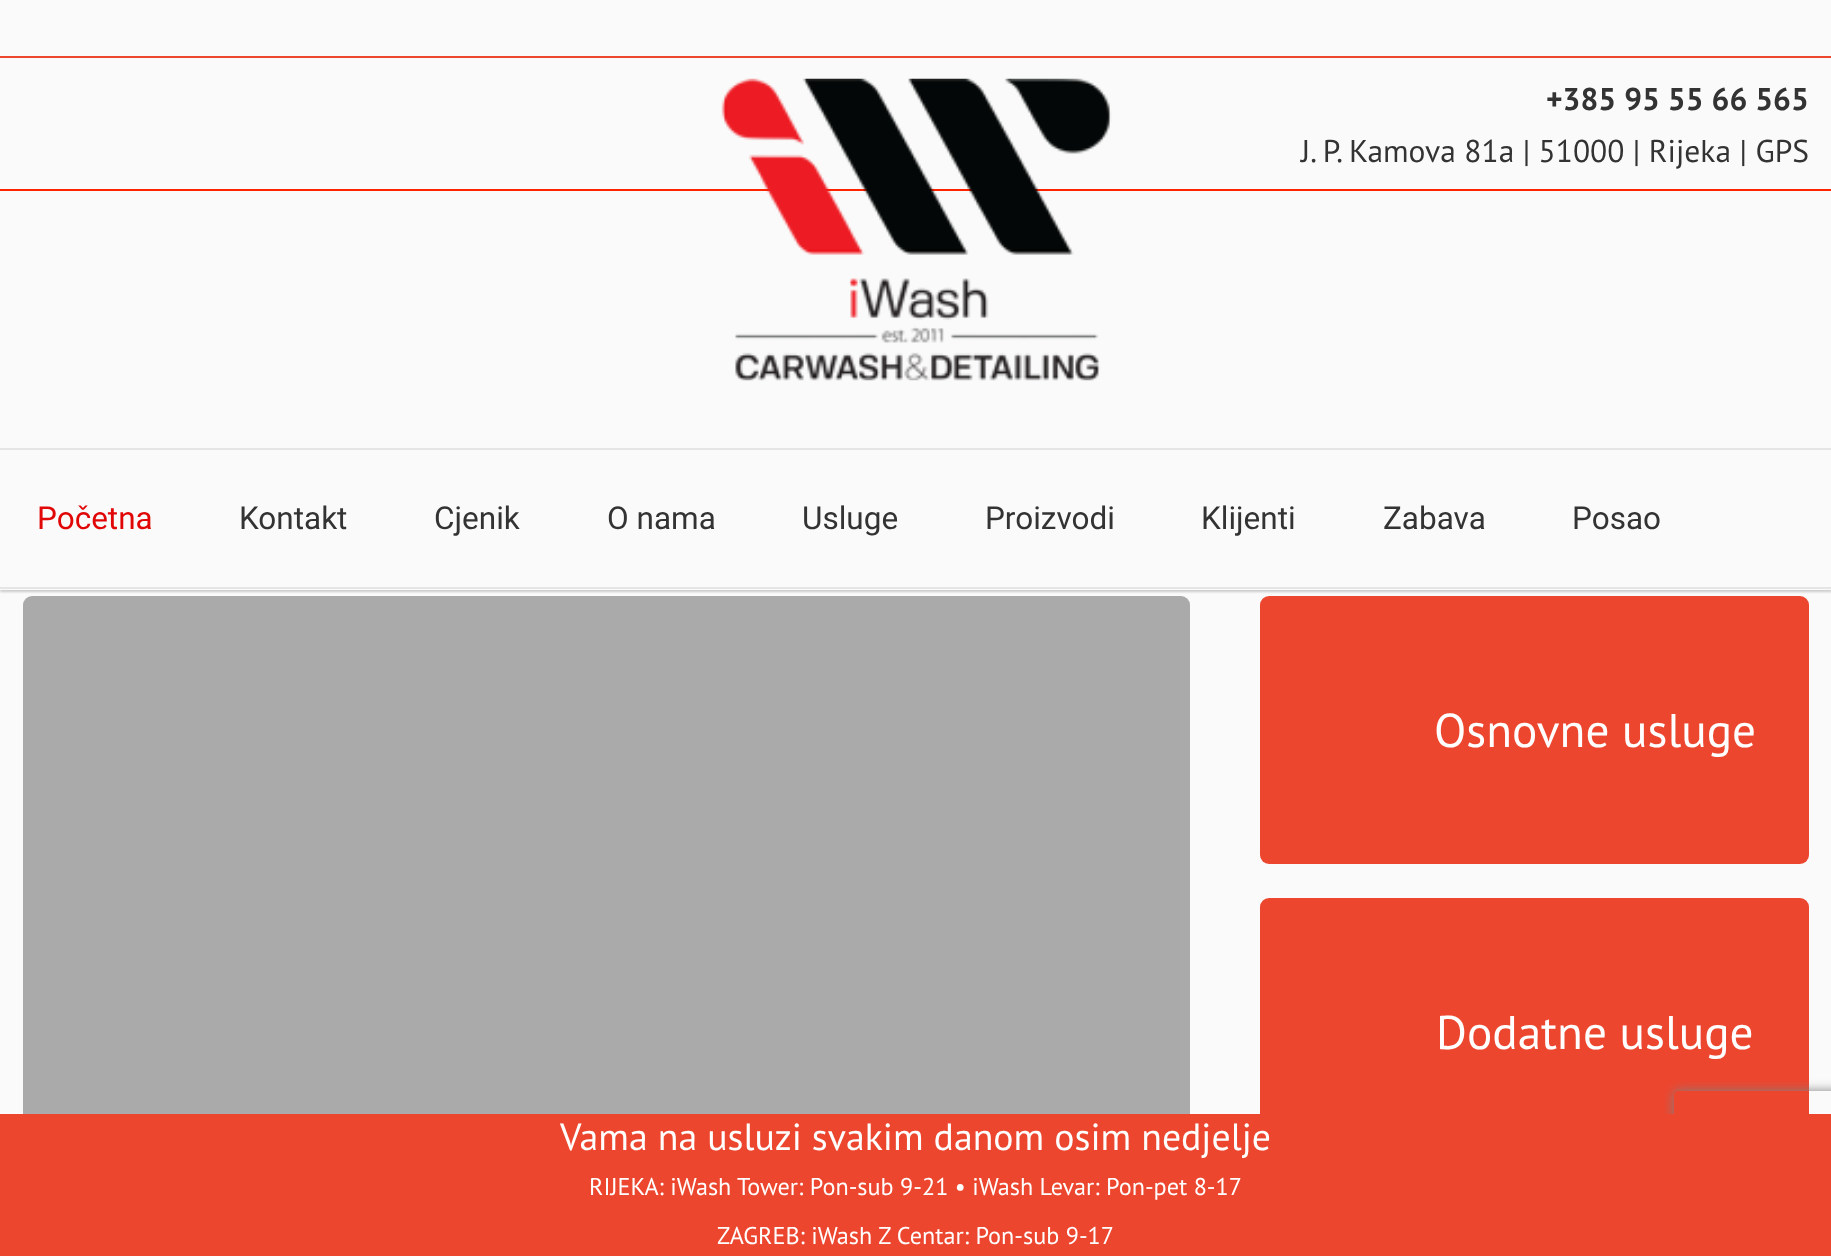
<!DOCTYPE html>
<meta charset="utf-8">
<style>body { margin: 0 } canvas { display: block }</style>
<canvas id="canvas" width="1831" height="1256"></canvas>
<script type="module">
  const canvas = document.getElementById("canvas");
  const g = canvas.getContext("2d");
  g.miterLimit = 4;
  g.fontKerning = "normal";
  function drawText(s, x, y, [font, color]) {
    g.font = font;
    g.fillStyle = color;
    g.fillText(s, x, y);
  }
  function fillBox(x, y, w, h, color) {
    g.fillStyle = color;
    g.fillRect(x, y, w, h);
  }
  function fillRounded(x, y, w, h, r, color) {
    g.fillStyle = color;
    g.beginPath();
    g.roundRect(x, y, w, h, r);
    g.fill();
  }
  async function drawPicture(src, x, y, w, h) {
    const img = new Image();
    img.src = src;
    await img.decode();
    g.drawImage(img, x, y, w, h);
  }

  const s1 = ["bold 31.5px PT Sans", "#333333"];
  const s2 = ["31.5px PT Sans", "#333333"];
  const s3 = ["31.5px Roboto", "#E10707"];
  const s4 = ["31.5px Roboto", "#333333"];
  const s5 = ["47.25px PT Sans", "#FFFFFF"];
  const s6 = ["37.75px PT Sans", "#FFFFFF"];
  const s7 = ["24.2px PT Sans", "#FFFFFF"];

  fillBox(0, 0, 1831, 1256, "#FAFAFA");
  g.fillStyle = "#CCCCCC";
  g.filter = "blur(1px)";
  g.beginPath();
  g.rect(0, 2, 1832, 590);
  g.fill();
  g.filter = "none";
  fillBox(0, 0, 1831, 590, "#FAFAFA");
  fillBox(0, 448, 1831, 2, "#E5E5E5");
  fillBox(0, 189, 1831, 2, "#FF2300");
  await drawPicture("pic1.png", 721, 78, 391, 303);
  fillBox(0, 56, 1831, 2, "#ED462F");
  drawText("+385 95 55 66 565", 1546, 110, s1);
  drawText("J. P. Kamova 81a | 51000 | Rijeka | GPS", 1301, 162, s2);
  fillBox(0, 587, 1831, 2, "#E5E5E5");
  drawText("Početna", 37, 529, s3);
  drawText("Kontakt", 239, 529, s4);
  drawText("Cjenik", 434, 529, s4);
  drawText("O nama", 607, 529, s4);
  drawText("Usluge", 802, 529, s4);
  drawText("Proizvodi", 985, 529, s4);
  drawText("Klijenti", 1201, 529, s4);
  drawText("Zabava", 1383, 529, s4);
  drawText("Posao", 1572, 529, s4);
  fillRounded(23, 596, 1167, 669, 9, "#AAAAAA");
  fillRounded(1260, 596, 549, 268, 9, "#ED462F");
  drawText("Osnovne usluge", 1434, 747, s5);
  fillRounded(1260, 898, 549, 268, 9, "#ED462F");
  drawText("Dodatne usluge", 1436, 1049, s5);
  g.save();
  g.beginPath();
  g.moveTo(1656, 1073);
  g.lineTo(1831, 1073);
  g.lineTo(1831, 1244);
  g.lineTo(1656, 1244);
  g.closePath();
  g.moveTo(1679, 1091);
  g.lineTo(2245, 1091);
  g.bezierCurveTo(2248, 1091, 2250, 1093, 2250, 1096);
  g.lineTo(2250, 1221);
  g.bezierCurveTo(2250, 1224, 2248, 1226, 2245, 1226);
  g.lineTo(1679, 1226);
  g.bezierCurveTo(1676, 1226, 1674, 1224, 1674, 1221);
  g.lineTo(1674, 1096);
  g.bezierCurveTo(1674, 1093, 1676, 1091, 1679, 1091);
  g.closePath();
  g.clip("evenodd");
  g.fillStyle = "#808080";
  g.filter = "blur(5.5px)";
  g.beginPath();
  g.roundRect(1674, 1091, 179, 135, 5);
  g.fill();
  g.filter = "none";
  g.restore();
  fillBox(0, 1114, 1831, 142, "#ED462F");
  drawText("Vama na usluzi svakim danom osim nedjelje", 560, 1150, s6);
  drawText("RIJEKA: iWash Tower: Pon-sub 9-21 • iWash Levar: Pon-pet 8-17", 589, 1195, s7);
  drawText("ZAGREB: iWash Z Centar: Pon-sub 9-17", 717, 1244, s7);
</script>
